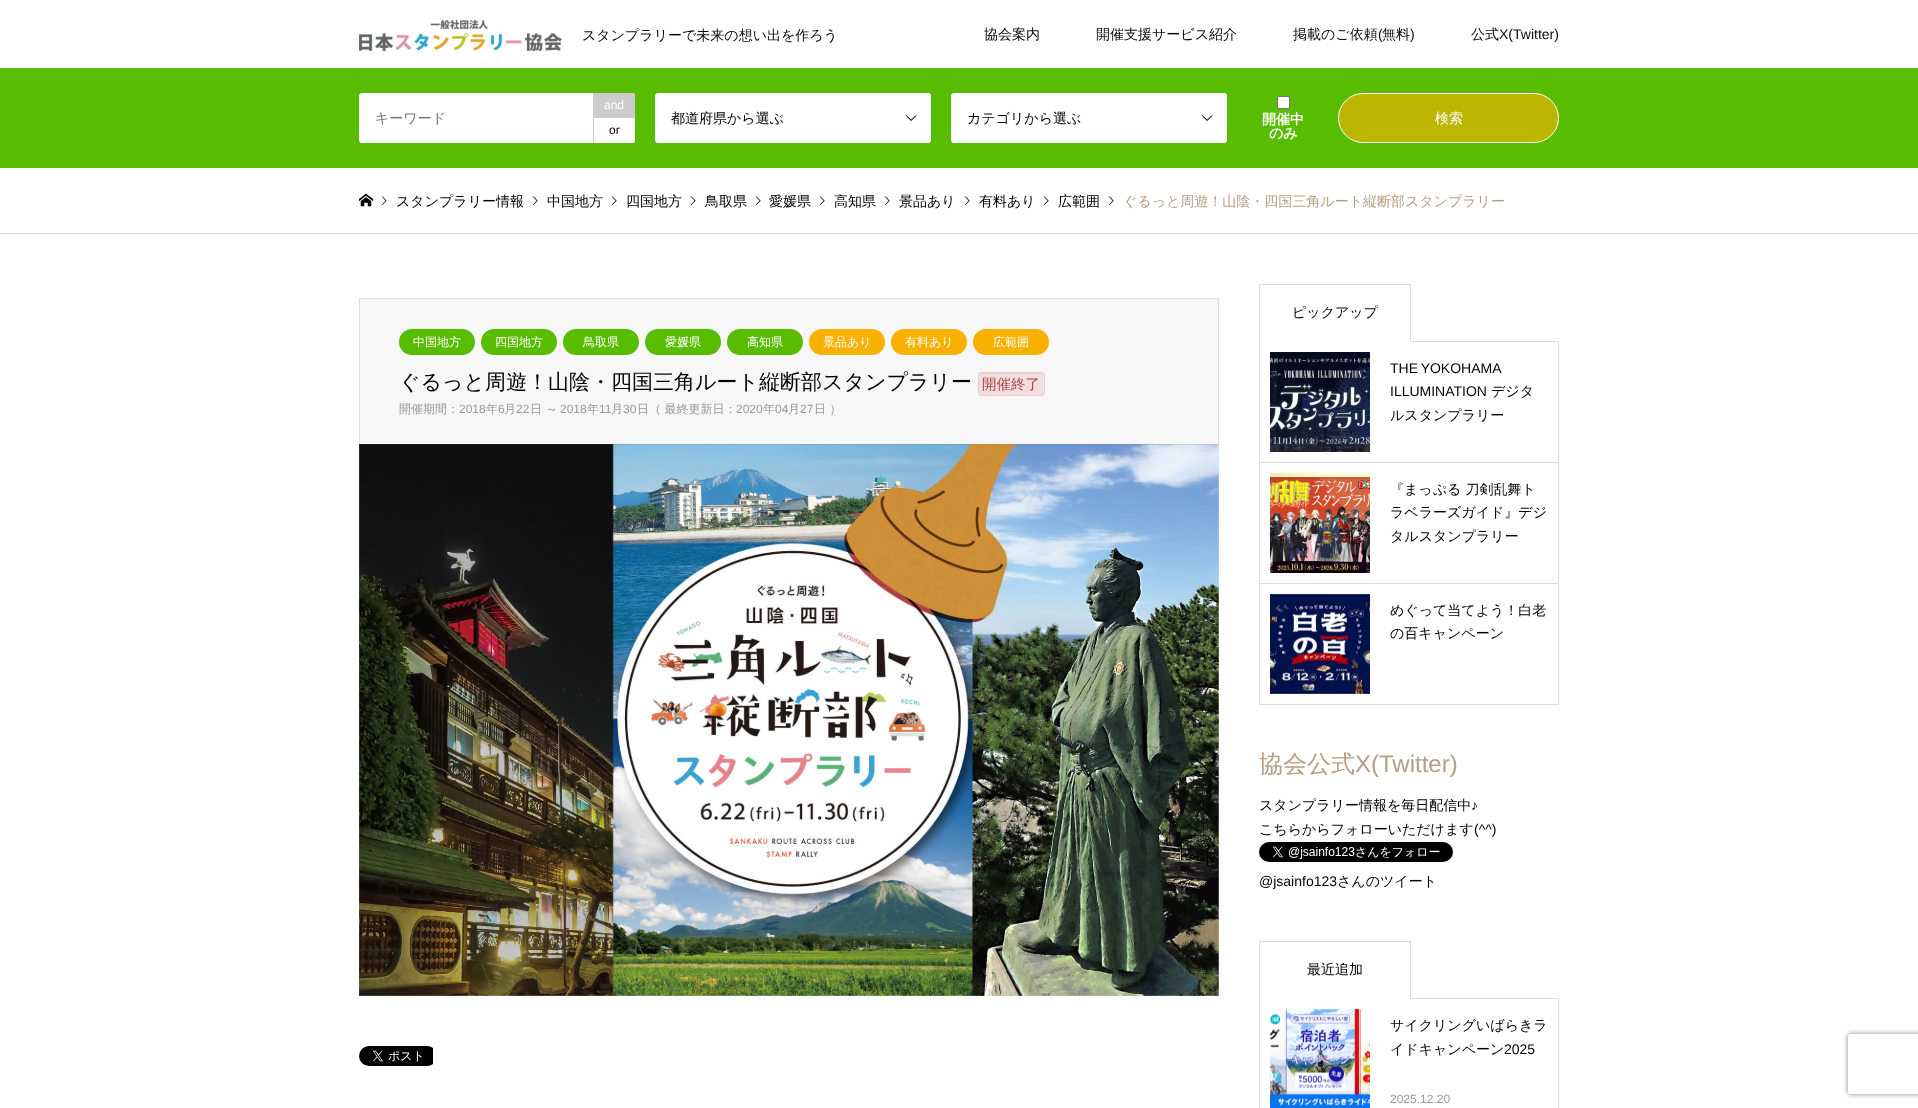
<!DOCTYPE html>
<meta charset="utf-8">
<style>body { margin: 0 } canvas { display: block }</style>
<canvas id="canvas" width="1918" height="1108"></canvas>
<script type="module">
  const canvas = document.getElementById("canvas");
  const g = canvas.getContext("2d");
  g.miterLimit = 4;
  g.fontKerning = "normal";
  function drawText(s, x, y, [font, color]) {
    g.font = font;
    g.fillStyle = color;
    g.fillText(s, x, y);
  }
  function fillBox(x, y, w, h, color) {
    g.fillStyle = color;
    g.fillRect(x, y, w, h);
  }
  function fillRounded(x, y, w, h, r, color) {
    g.fillStyle = color;
    g.beginPath();
    g.roundRect(x, y, w, h, r);
    g.fill();
  }
  async function drawPicture(src, x, y, w, h) {
    const img = new Image();
    img.src = src;
    await img.decode();
    g.drawImage(img, x, y, w, h);
  }

  const s1 = ["500 14px WenQuanYi Zen Hei", "#0A0A0A"];
  const s2 = ["14px Liberation Sans", "#0A0A0A"];
  const s3 = ["500 14px WenQuanYi Zen Hei", "#757575"];
  const s4 = ["12px Liberation Sans", "#FFFFFF"];
  const s5 = ["12px Liberation Sans", "#000000"];
  const s6 = ["500 14px WenQuanYi Zen Hei", "#000000"];
  const s7 = ["bold 14px WenQuanYi Zen Hei", "#FFFFFF"];
  const s8 = ["500 14px WenQuanYi Zen Hei", "#FFFFFF"];
  const s9 = ["500 14px WenQuanYi Zen Hei", "#B69E84"];
  const s10 = ["500 12px WenQuanYi Zen Hei", "#FFFFFF"];
  const s11 = ["500 21px WenQuanYi Zen Hei", "#000000"];
  const s12 = ["500 14.5px WenQuanYi Zen Hei", "#A94442"];
  const s13 = ["500 12px WenQuanYi Zen Hei", "#999999"];
  const s14 = ["12px Liberation Sans", "#999999"];
  const s15 = ["14px Liberation Sans", "#000000"];
  const s16 = ["500 24px WenQuanYi Zen Hei", "#B69E84"];
  const s17 = ["24px Liberation Sans", "#B69E84"];

  fillBox(0, 0, 1918, 1108, "#FFFFFF");
  await drawPicture("pic1.png", 359, 20, 203, 31);
  drawText("スタンプラリーで未来の想い出を作ろう", 582, 40, s1);
  drawText("協会案内", 984, 39, s1);
  drawText("開催支援サービス紹介", 1096, 39, s1);
  drawText("掲載のご依頼", 1293, 39, s1);
  drawText("(", 1378, 39, s2);
  drawText("無料", 1382, 39, s1);
  drawText(")", 1410, 39, s2);
  drawText("公式", 1471, 39, s1);
  drawText("X(Twitter)", 1499, 39, s2);
  fillBox(0, 68, 1918, 100, "#58BC00");
  fillRounded(359, 93, 276, 50, 3, "#FFFFFF");
  drawText("キーワード", 375, 123, s3);
  g.fillStyle = "#CCCCCC";
  g.beginPath();
  g.roundRect(593, 93, 42, 25, [0, 3, 0, 0]);
  g.fill();
  drawText("and", 604, 109, s4);
  g.beginPath();
  g.roundRect(593, 118, 42, 25, [0, 0, 3, 0]);
  g.fill();
  fillBox(593, 118, 1, 25, "#CCCCCC");
  drawText("or", 609, 134, s5);
  fillRounded(655, 93, 276, 50, 3, "#FFFFFF");
  drawText("都道府県から選ぶ", 671, 123, s6);
  await drawPicture("pic2.png", 905, 115, 12, 6);
  fillRounded(951, 93, 276, 50, 3, "#FFFFFF");
  drawText("カテゴリから選ぶ", 967, 123, s6);
  await drawPicture("pic2.png", 1201, 115, 12, 6);
  g.fillStyle = "#FFFFFF";
  g.beginPath();
  g.roundRect(1277.5, 96.5, 12, 12, 1.5);
  g.fill();
  g.strokeStyle = "#767676";
  g.stroke();
  drawText("開催中", 1262, 124, s7);
  drawText("のみ", 1269, 138, s7);
  g.fillStyle = "#BCB600";
  g.beginPath();
  g.roundRect(1338.5, 93.5, 220, 49, 24.5);
  g.fill();
  g.strokeStyle = "#FFFFFF";
  g.stroke();
  drawText("検索", 1435, 123, s8);
  fillBox(0, 233, 1918, 1, "#DDDDDD");
  await drawPicture("pic3.png", 359, 193, 14, 14);
  await drawPicture("pic4.png", 382, 196, 5, 9);
  drawText("スタンプラリー情報", 396, 206, s6);
  await drawPicture("pic4.png", 533, 196, 5, 9);
  drawText("中国地方", 547, 206, s6);
  await drawPicture("pic4.png", 612, 196, 5, 9);
  drawText("四国地方", 626, 206, s6);
  await drawPicture("pic4.png", 691, 196, 5, 9);
  drawText("鳥取県", 705, 206, s6);
  await drawPicture("pic4.png", 756, 196, 5, 9);
  drawText("愛媛県", 769, 206, s6);
  await drawPicture("pic4.png", 820, 196, 5, 9);
  drawText("高知県", 834, 206, s6);
  await drawPicture("pic4.png", 885, 196, 5, 9);
  drawText("景品あり", 899, 206, s6);
  await drawPicture("pic4.png", 965, 196, 5, 9);
  drawText("有料あり", 979, 206, s6);
  await drawPicture("pic4.png", 1044, 196, 5, 9);
  drawText("広範囲", 1058, 206, s6);
  await drawPicture("pic4.png", 1109, 196, 5, 9);
  drawText("ぐるっと周遊！山陰・四国三角ルート縦断部スタンプラリー", 1123, 206, s9);
  g.fillStyle = "#F7F7F7";
  g.beginPath();
  g.rect(359.5, 298.5, 859, 146);
  g.fill();
  g.strokeStyle = "#DDDDDD";
  g.stroke();
  fillRounded(399, 329, 76, 26, 13, "#58BC00");
  drawText("中国地方", 413, 346, s10);
  fillRounded(481, 329, 76, 26, 13, "#58BC00");
  drawText("四国地方", 495, 346, s10);
  fillRounded(563, 329, 76, 26, 13, "#58BC00");
  drawText("鳥取県", 583, 346, s10);
  fillRounded(645, 329, 76, 26, 13, "#58BC00");
  drawText("愛媛県", 665, 346, s10);
  fillRounded(727, 329, 76, 26, 13, "#58BC00");
  drawText("高知県", 747, 346, s10);
  fillRounded(809, 329, 76, 26, 13, "#F8B101");
  drawText("景品あり", 823, 346, s10);
  fillRounded(891, 329, 76, 26, 13, "#F8B101");
  drawText("有料あり", 905, 346, s10);
  fillRounded(973, 329, 76, 26, 13, "#F8B101");
  drawText("広範囲", 993, 346, s10);
  drawText("ぐるっと周遊！山陰・四国三角ルート縦断部スタンプラリー", 399, 389, s11);
  fillRounded(978, 372, 67, 24, 4, "#F2DEDE");
  g.fillStyle = "#E6D3D3";
  g.beginPath();
  g.moveTo(982, 374);
  g.lineTo(1041, 374);
  g.bezierCurveTo(1043, 374, 1044, 375, 1044, 377);
  g.bezierCurveTo(1044, 371, 1036, 373, 1031, 373);
  g.lineTo(992, 373);
  g.bezierCurveTo(987, 373, 979, 371, 979, 377);
  g.bezierCurveTo(979, 375, 980, 374, 982, 374);
  g.closePath();
  g.fill();
  g.beginPath();
  g.roundRect(978.5, 372.5, 66, 23, 3.5);
  g.strokeStyle = "#EBCCD1";
  g.stroke();
  drawText("開催終了", 982, 389, s12);
  drawText("開催期間：", 399, 413, s13);
  drawText("2018", 459, 413, s14);
  drawText("年", 486, 413, s13);
  drawText("6", 498, 413, s14);
  drawText("月", 504, 413, s13);
  drawText("22", 516, 413, s14);
  drawText("日 ～", 530, 413, s13);
  drawText("2018", 560, 413, s14);
  drawText("年", 587, 413, s13);
  drawText("11", 599, 413, s14);
  drawText("月", 611, 413, s13);
  drawText("30", 623, 413, s14);
  drawText("日（ 最終更新日：", 637, 413, s13);
  drawText("2020", 736, 413, s14);
  drawText("年", 763, 413, s13);
  drawText("04", 775, 413, s14);
  drawText("月", 788, 413, s13);
  drawText("27", 800, 413, s14);
  drawText("日 ）", 814, 413, s13);
  await drawPicture("pic5.png", 359, 444, 860, 552);
  await drawPicture("pic6.png", 359, 1046, 74, 20);
  fillBox(1260, 284, 151, 1, "#DDDDDD");
  fillBox(1410, 284, 1, 58, "#DDDDDD");
  drawText("ピックアップ", 1292, 317, s6);
  fillBox(1411, 341, 148, 1, "#DDDDDD");
  fillBox(1558, 341, 1, 364, "#DDDDDD");
  fillBox(1259, 284, 1, 421, "#DDDDDD");
  fillBox(1260, 462, 298, 1, "#DDDDDD");
  await drawPicture("pic7.png", 1270, 352, 100, 100);
  g.wordSpacing = "-1px";
  drawText("THE YOKOHAMA", 1390, 373, s15);
  g.wordSpacing = "0px";
  drawText("ILLUMINATION", 1390, 396, s15);
  drawText("デジタ", 1491, 396, s6);
  drawText("ルスタンプラリー", 1390, 420, s6);
  fillBox(1260, 583, 298, 1, "#DDDDDD");
  await drawPicture("pic8.png", 1270, 473, 100, 100);
  drawText("『まっぷる 刀剣乱舞ト", 1390, 494, s6);
  drawText("ラベラーズガイド』デジ", 1390, 517, s6);
  drawText("タルスタンプラリー", 1390, 541, s6);
  fillBox(1260, 704, 298, 1, "#DDDDDD");
  await drawPicture("pic9.png", 1270, 594, 100, 100);
  drawText("めぐって当てよう！白老", 1390, 615, s6);
  drawText("の百キャンペーン", 1390, 638, s6);
  drawText("協会公式", 1259, 772, s16);
  drawText("X(Twitter)", 1355, 772, s17);
  drawText("スタンプラリー情報を毎日配信中", 1259, 810, s6);
  drawText("♪", 1471, 810, s15);
  drawText("こちらからフォローいただけます", 1259, 834, s6);
  drawText("(^^)", 1474, 834, s15);
  await drawPicture("pic10.png", 1259, 842, 194, 20);
  drawText("@jsainfo123", 1259, 886, s15);
  drawText("さんのツイート", 1337, 886, s6);
  fillBox(1260, 941, 151, 1, "#DDDDDD");
  fillBox(1410, 941, 1, 58, "#DDDDDD");
  drawText("最近追加", 1307, 974, s6);
  fillBox(1411, 998, 148, 1, "#DDDDDD");
  fillBox(1558, 998, 1, 110, "#DDDDDD");
  fillBox(1259, 941, 1, 167, "#DDDDDD");
  await drawPicture("pic11.png", 1270, 1009, 100, 99);
  drawText("サイクリングいばらきラ", 1390, 1030, s6);
  drawText("イドキャンペーン", 1390, 1054, s6);
  drawText("2025", 1504, 1054, s15);
  drawText("2025.12.20", 1390, 1103, s14);
  g.save();
  g.beginPath();
  g.moveTo(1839, 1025);
  g.lineTo(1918, 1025);
  g.lineTo(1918, 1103);
  g.lineTo(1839, 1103);
  g.closePath();
  g.moveTo(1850, 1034);
  g.lineTo(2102, 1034);
  g.bezierCurveTo(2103, 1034, 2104, 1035, 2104, 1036);
  g.lineTo(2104, 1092);
  g.bezierCurveTo(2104, 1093, 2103, 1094, 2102, 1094);
  g.lineTo(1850, 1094);
  g.bezierCurveTo(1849, 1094, 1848, 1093, 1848, 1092);
  g.lineTo(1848, 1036);
  g.bezierCurveTo(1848, 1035, 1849, 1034, 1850, 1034);
  g.closePath();
  g.clip("evenodd");
  g.fillStyle = "#808080";
  g.filter = "blur(2.5px)";
  g.beginPath();
  g.roundRect(1848, 1034, 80, 60, 2);
  g.fill();
  g.filter = "none";
  g.restore();
</script>
